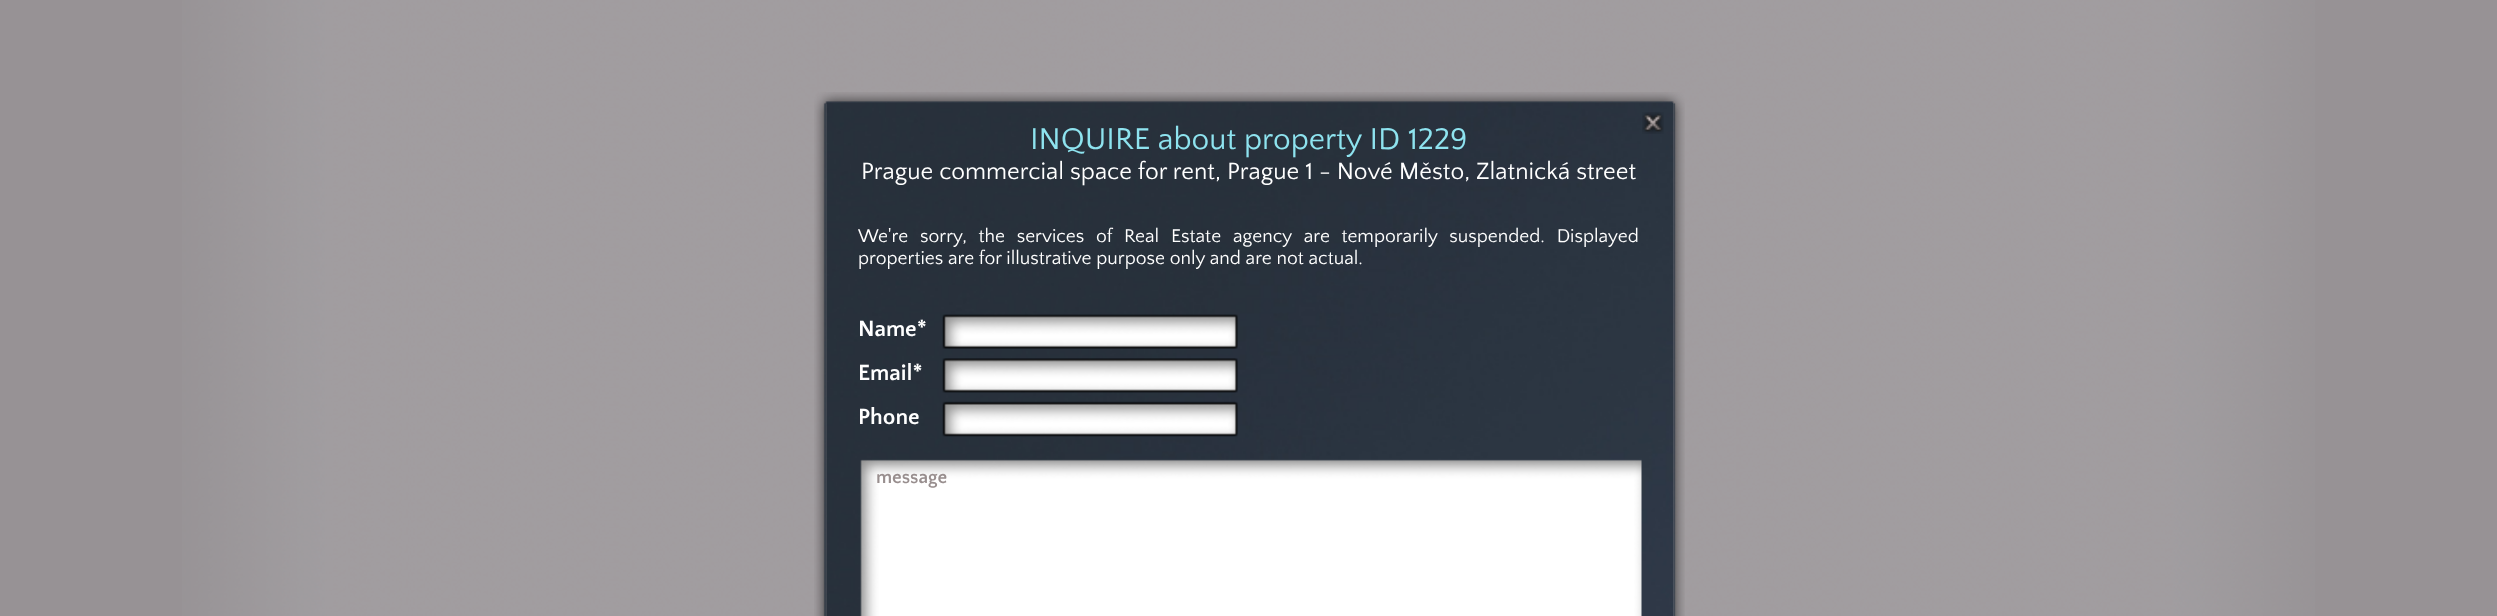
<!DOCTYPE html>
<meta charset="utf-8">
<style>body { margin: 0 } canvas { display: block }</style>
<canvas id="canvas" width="2497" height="616"></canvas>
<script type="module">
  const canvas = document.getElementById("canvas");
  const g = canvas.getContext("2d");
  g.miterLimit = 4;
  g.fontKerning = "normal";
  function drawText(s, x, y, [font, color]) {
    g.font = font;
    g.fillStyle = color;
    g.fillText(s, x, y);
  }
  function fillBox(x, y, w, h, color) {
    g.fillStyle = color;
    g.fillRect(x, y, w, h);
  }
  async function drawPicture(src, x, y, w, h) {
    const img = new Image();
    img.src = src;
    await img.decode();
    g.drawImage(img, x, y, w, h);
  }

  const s1 = ["31.5px Quattrocento Sans", "#8EE3EF"];
  const s2 = ["24.5px Quattrocento Sans", "#FFFFFF"];
  const s3 = ["19.25px Quattrocento Sans", "#FFFFFF"];
  const s4 = ["bold 23px Quattrocento Sans", "#FFFFFF"];
  const s5 = ["bold 19.25px Quattrocento Sans", "#988E8E"];

  fillBox(0, 0, 2497, 616, "#979295");
  await drawPicture("pic1.png", 182, 0, 2133, 616);
  await drawPicture("pic2.png", 814, 92, 871, 524);
  await drawPicture("pic3.png", 825, 103, 848, 513);
  drawText("INQUIRE about property ID 1229", 1030, 149, s1);
  await drawPicture("pic4.png", 1642, 112, 22, 22);
  drawText("Prague commercial space for rent, Prague 1 - Nové Město, Zlatnická street", 861, 179, s2);
  g.wordSpacing = "7.1px";
  drawText("We're sorry, the services of Real Estate agency are temporarily suspended. Displayed", 858, 242, s3);
  g.wordSpacing = "0px";
  drawText("properties are for illustrative purpose only and are not actual.", 858, 264, s3);
  drawText("Name*", 858, 336, s4);
  await drawPicture("pic5.png", 942, 314, 296, 35);
  drawText("Email*", 858, 380, s4);
  await drawPicture("pic6.png", 942, 358, 296, 35);
  drawText("Phone", 858, 424, s4);
  await drawPicture("pic7.png", 942, 401, 296, 36);
  await drawPicture("pic8.png", 860, 459, 782, 157);
  drawText("message", 876, 483, s5);
</script>
